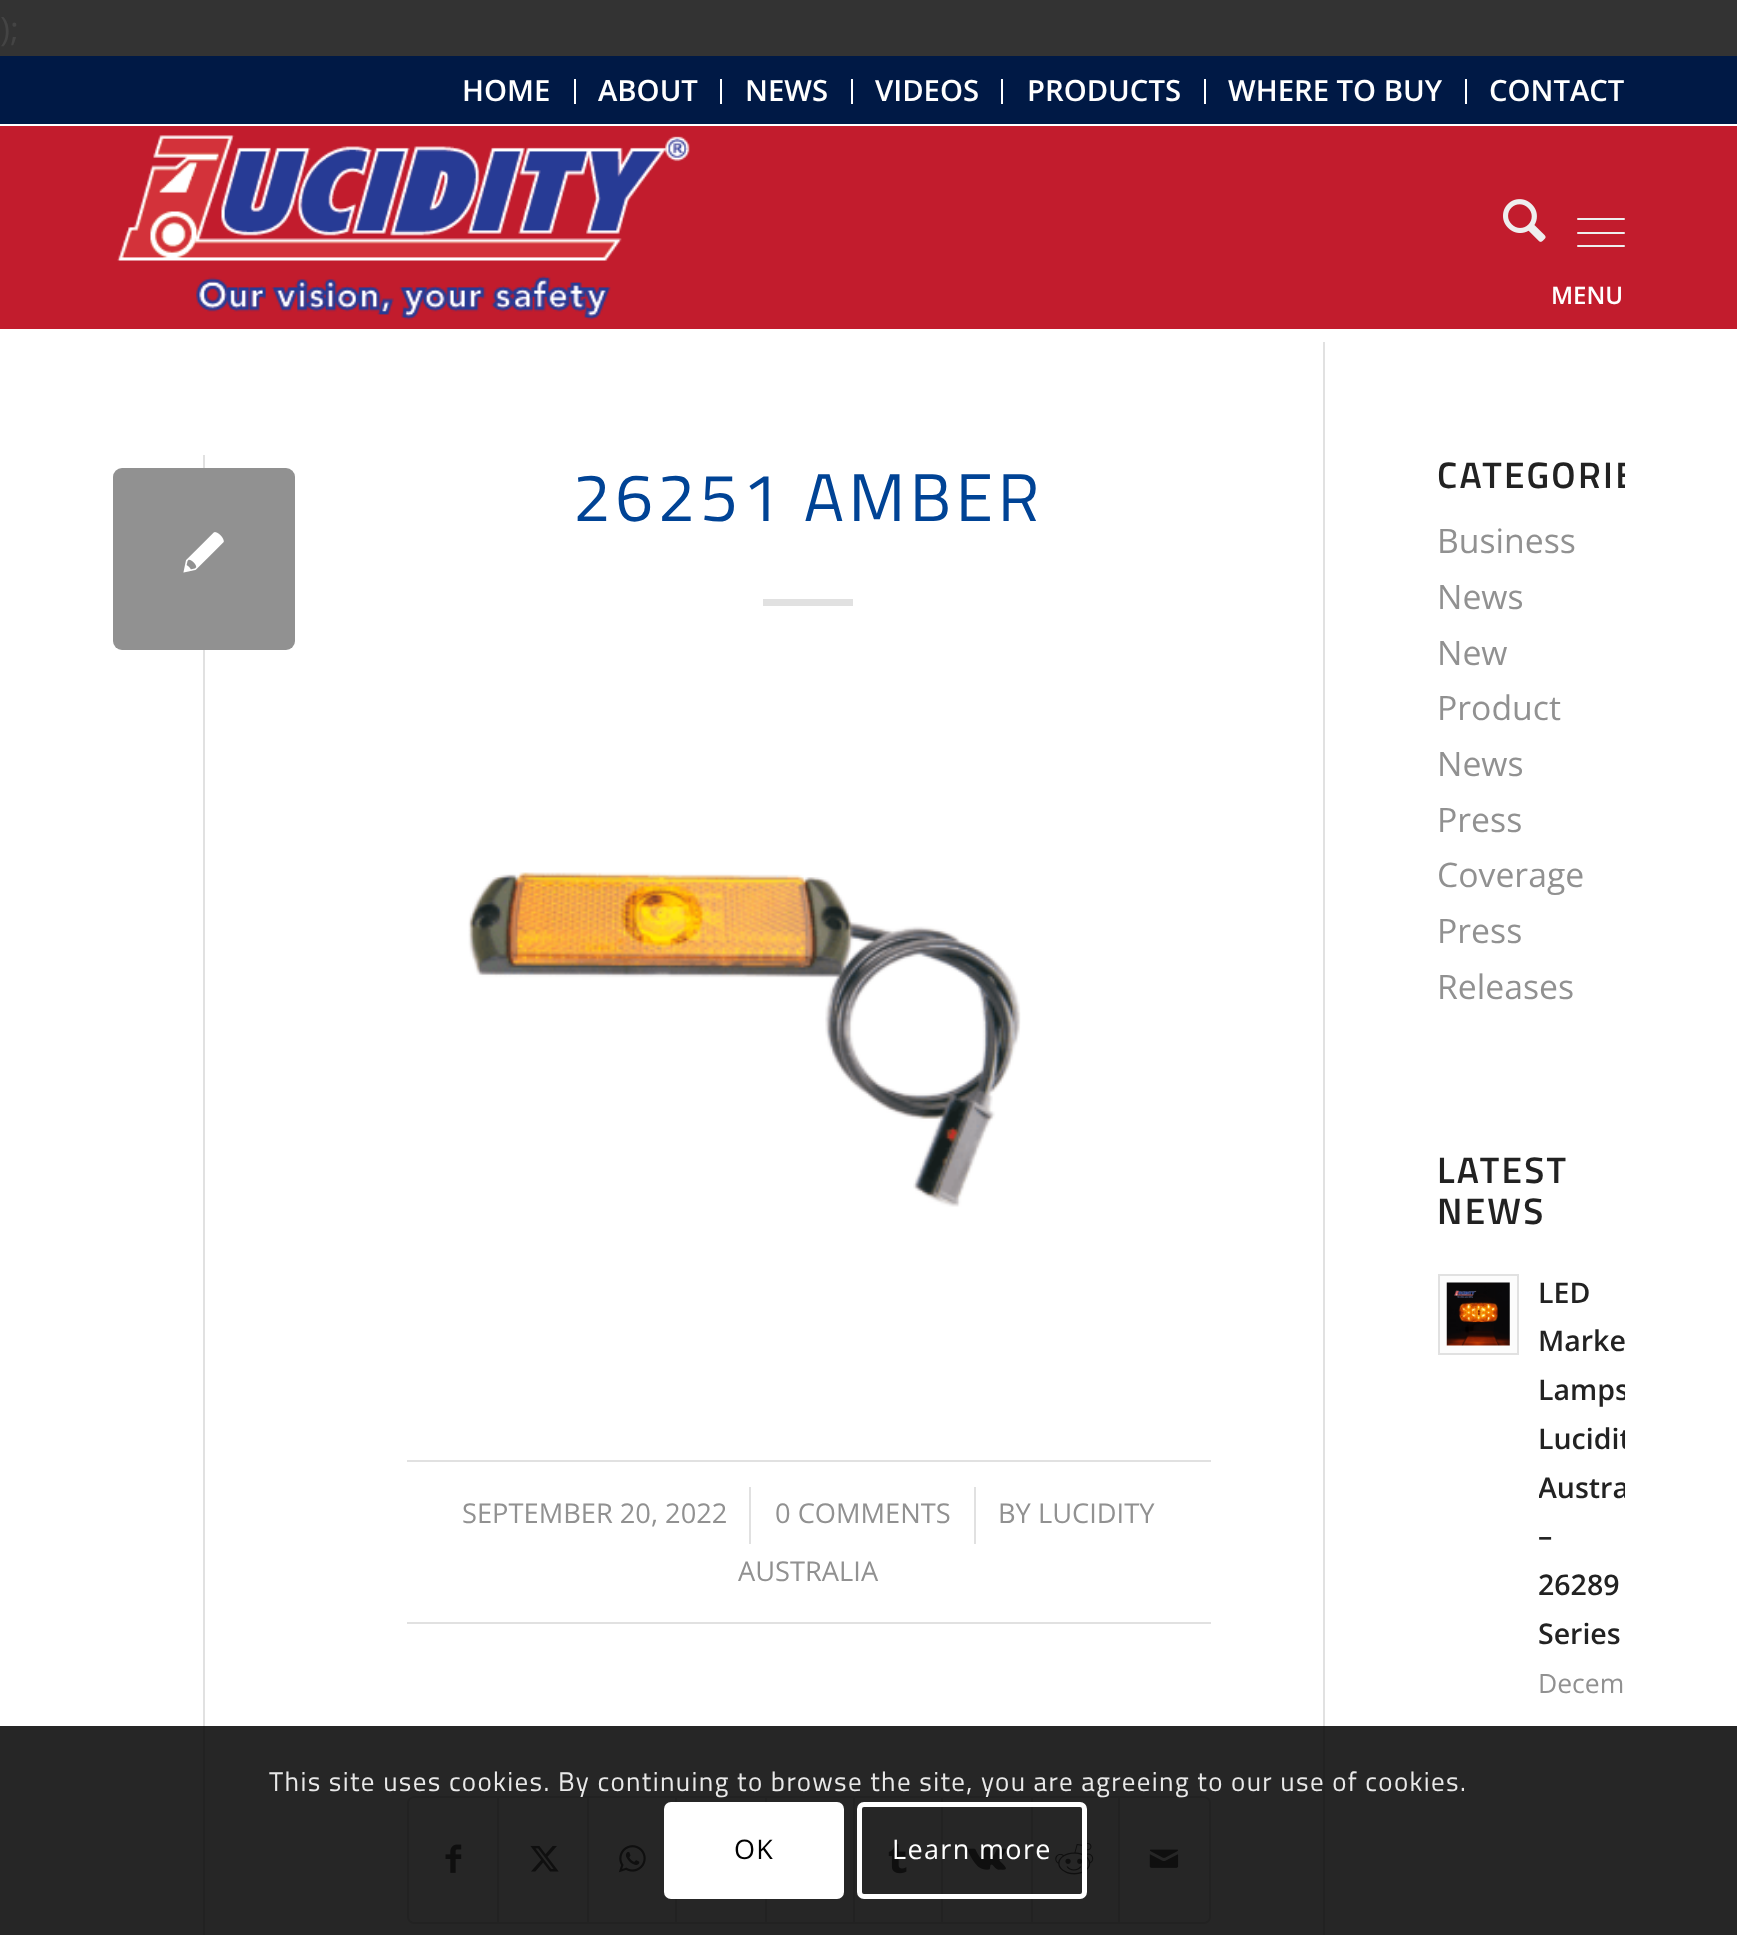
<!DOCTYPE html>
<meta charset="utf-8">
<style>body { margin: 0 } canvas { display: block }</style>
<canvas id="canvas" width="1737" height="1935"></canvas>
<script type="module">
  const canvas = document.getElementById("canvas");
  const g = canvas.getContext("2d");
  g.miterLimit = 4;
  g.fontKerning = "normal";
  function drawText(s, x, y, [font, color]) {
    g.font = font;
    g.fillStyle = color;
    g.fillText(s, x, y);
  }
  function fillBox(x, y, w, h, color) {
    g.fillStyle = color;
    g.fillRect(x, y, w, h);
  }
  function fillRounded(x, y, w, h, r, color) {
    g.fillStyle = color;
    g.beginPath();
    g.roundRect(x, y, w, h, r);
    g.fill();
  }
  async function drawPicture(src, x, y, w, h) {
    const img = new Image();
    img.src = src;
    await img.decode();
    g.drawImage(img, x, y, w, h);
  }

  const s1 = ["33.75px Open Sans", "#444444"];
  const s2 = ["600 29.25px Open Sans", "#FFFFFF"];
  const s3 = ["600 24px Open Sans", "#FFFFFF"];
  const s4 = ["67.5px Titillium Web", "#004395"];
  const s5 = ["27.25px Open Sans", "#919191"];
  const s6 = ["600 37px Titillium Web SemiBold", "#222222"];
  const s7 = ["33.75px Open Sans", "#919191"];
  const s8 = ["600 28.5px Open Sans", "#222222"];
  const s9 = ["26.5px Open Sans", "#919191"];
  const s10 = ["27px Titillium Web", "#E9E9E9"];
  const s11 = ["27px Open Sans", "#000000"];
  const s12 = ["27px Open Sans", "#FFFFFF"];

  fillBox(0, 0, 1737, 1935, "#333333");
  drawText(");", 0, 41, s1);
  fillBox(0, 56, 1737, 68, "#001945");
  fillBox(0, 124, 1737, 2, "#FFFFFF");
  fillBox(574, 79, 2, 25, "#FFFFFF");
  drawText("HOME", 462, 101, s2);
  fillBox(720, 79, 2, 25, "#FFFFFF");
  drawText("ABOUT", 598, 101, s2);
  fillBox(851, 79, 2, 25, "#FFFFFF");
  drawText("NEWS", 745, 101, s2);
  fillBox(1001, 79, 2, 25, "#FFFFFF");
  drawText("VIDEOS", 875, 101, s2);
  fillBox(1204, 79, 2, 25, "#FFFFFF");
  drawText("PRODUCTS", 1027, 101, s2);
  fillBox(1465, 79, 2, 25, "#FFFFFF");
  drawText("WHERE TO BUY", 1228, 101, s2);
  drawText("CONTACT", 1489, 101, s2);
  fillBox(0, 126, 1737, 203, "#C21C2D");
  await drawPicture("pic1.png", 117, 135, 573, 185);
  await drawPicture("pic2.png", 1503, 199, 43, 43);
  fillRounded(1577, 232, 48, 2, 1, "#EEEEEE");
  fillRounded(1577, 218, 48, 2, 1, "#EEEEEE");
  fillRounded(1577, 245, 48, 2, 1, "#EEEEEE");
  drawText("MENU", 1551, 304, s3);
  fillBox(0, 329, 1737, 1606, "#FFFFFF");
  fillBox(1323, 342, 2, 1593, "#E1E1E1");
  fillBox(203, 455, 2, 1480, "#E1E1E1");
  fillRounded(113, 468, 182, 182, 9, "#919191");
  await drawPicture("pic3.png", 183, 532, 41, 41);
  g.letterSpacing = "4.5px";
  drawText("26251 AMBER", 573, 521, s4);
  fillBox(763, 599, 90, 7, "#E1E1E1");
  await drawPicture("pic4.png", 468, 872, 553, 335);
  fillBox(407, 1460, 804, 2, "#E1E1E1");
  fillBox(407, 1622, 804, 2, "#E1E1E1");
  g.letterSpacing = "0px";
  drawText("SEPTEMBER 20, 2022", 462, 1523, s5);
  fillBox(749, 1487, 2, 57, "#E1E1E1");
  drawText("0 COMMENTS", 775, 1523, s5);
  fillBox(974, 1487, 2, 57, "#E1E1E1");
  drawText("BY LUCIDITY", 998, 1523, s5);
  drawText("AUSTRALIA", 738, 1581, s5);
  g.beginPath();
  g.roundRect(408, 1797, 802, 126, 6);
  g.strokeStyle = "#E1E1E1";
  g.lineWidth = 2;
  g.stroke();
  await drawPicture("pic5.png", 445, 1844, 17, 29);
  fillBox(497, 1798, 2, 124, "#E1E1E1");
  await drawPicture("pic6.png", 530, 1845, 29, 27);
  fillBox(587, 1798, 2, 124, "#E1E1E1");
  await drawPicture("pic7.png", 618, 1845, 28, 28);
  fillBox(675, 1798, 2, 124, "#E1E1E1");
  fillBox(765, 1798, 2, 124, "#E1E1E1");
  fillBox(853, 1798, 2, 124, "#E1E1E1");
  await drawPicture("pic8.png", 888, 1844, 19, 30);
  fillBox(941, 1798, 2, 124, "#E1E1E1");
  await drawPicture("pic9.png", 967, 1847, 39, 23);
  fillBox(1031, 1798, 2, 124, "#E1E1E1");
  await drawPicture("pic10.png", 1055, 1843, 39, 32);
  fillBox(1118, 1798, 2, 124, "#E1E1E1");
  await drawPicture("pic11.png", 1149, 1849, 30, 19);
  g.save();
  g.beginPath();
  g.rect(1325, 342, 300, 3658);
  g.clip();
  g.letterSpacing = "2.25px";
  drawText("CATEGORIE", 1437, 488, s6);
  g.restore();
  drawText("Business", 1437, 553, s7);
  drawText("News", 1437, 609, s7);
  drawText("New", 1437, 665, s7);
  drawText("Product", 1437, 720, s7);
  drawText("News", 1437, 776, s7);
  drawText("Press", 1437, 832, s7);
  drawText("Coverage", 1437, 887, s7);
  drawText("Press", 1437, 943, s7);
  drawText("Releases", 1437, 999, s7);
  g.letterSpacing = "2.25px";
  drawText("LATEST", 1437, 1183, s6);
  drawText("NEWS", 1437, 1224, s6);
  g.fillStyle = "#FCFCFC";
  g.beginPath();
  g.rect(1439, 1275, 79, 79);
  g.fill();
  g.stroke();
  await drawPicture("pic12.png", 1446, 1282, 64, 64);
  g.letterSpacing = "0px";
  drawText("LED", 1538, 1303, s8);
  g.save();
  g.beginPath();
  g.rect(1539, 1269, 86, 635);
  g.clip();
  drawText("Marke", 1538, 1351, s8);
  drawText("Lamps", 1538, 1400, s8);
  drawText("Lucidit", 1538, 1449, s8);
  drawText("Austra", 1538, 1498, s8);
  g.restore();
  drawText("–", 1538, 1546, s8);
  drawText("26289", 1538, 1595, s8);
  drawText("Series", 1538, 1644, s8);
  drawText("Decem", 1538, 1693, s9);
  fillBox(0, 1726, 1737, 209, "rgba(0, 0, 0, 0.85)");
  g.letterSpacing = "1.35px";
  drawText("This site uses cookies. By continuing to browse the site, you are agreeing to our use of cookies.", 269, 1791, s10);
  fillRounded(664, 1802, 180, 97, 7, "#FFFFFF");
  drawText("OK", 734, 1859, s11);
  g.beginPath();
  g.roundRect(859.5, 1804.5, 225, 92, 4.5);
  g.strokeStyle = "#FFFFFF";
  g.lineWidth = 5;
  g.stroke();
  drawText("Learn more", 892, 1859, s12);
</script>
